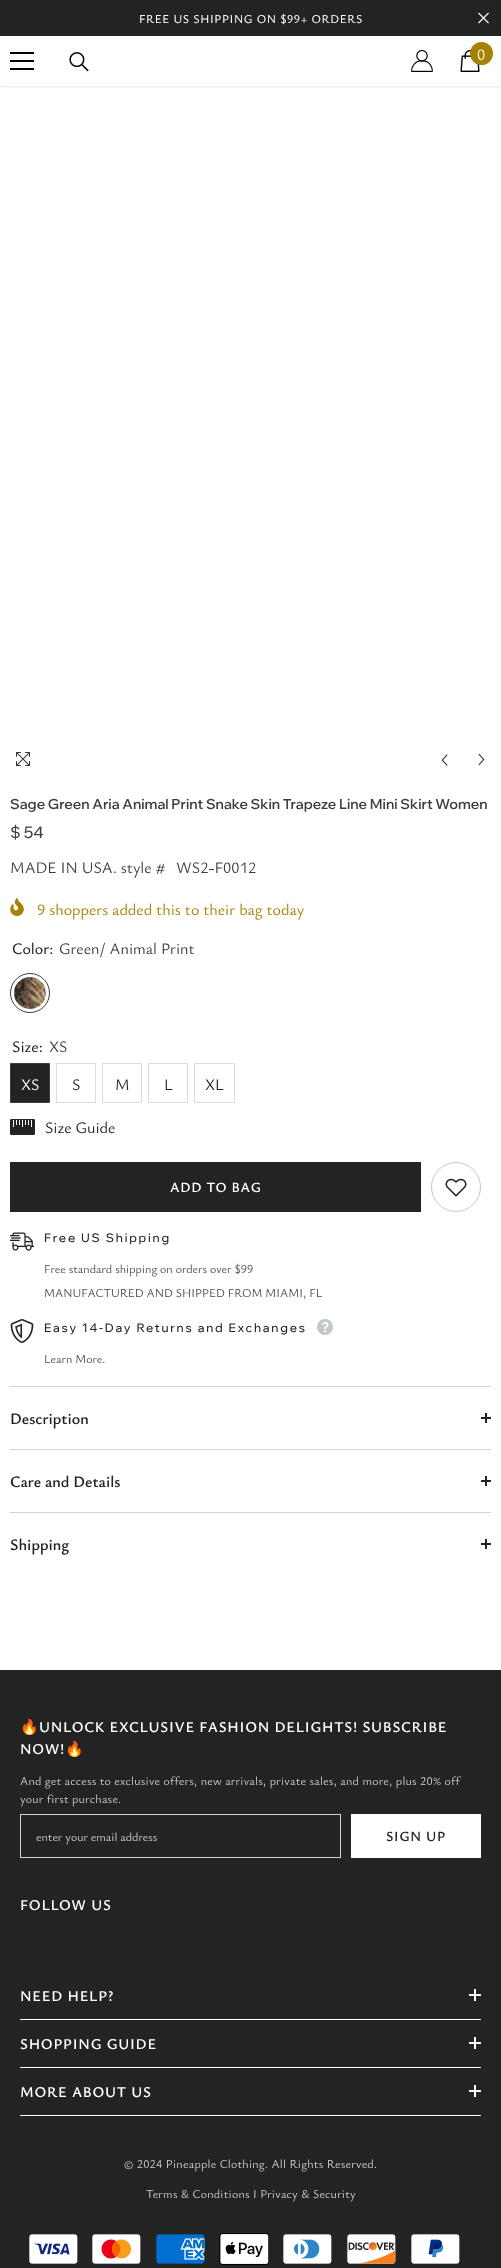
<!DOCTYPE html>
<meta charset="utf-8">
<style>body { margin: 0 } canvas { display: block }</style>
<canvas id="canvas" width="501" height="2268"></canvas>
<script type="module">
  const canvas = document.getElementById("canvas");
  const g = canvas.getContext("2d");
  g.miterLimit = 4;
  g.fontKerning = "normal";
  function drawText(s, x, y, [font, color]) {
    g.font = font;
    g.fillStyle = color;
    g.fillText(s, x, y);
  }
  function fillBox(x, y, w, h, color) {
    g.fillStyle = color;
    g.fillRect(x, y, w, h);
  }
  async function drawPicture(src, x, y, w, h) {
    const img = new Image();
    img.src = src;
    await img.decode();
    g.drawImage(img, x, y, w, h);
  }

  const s1 = ["500 12px Ysabeau Office", "#FFFFFF"];
  const s2 = ["16px Ysabeau Office", "#FFFFFF"];
  const s3 = ["600 14px Wix Madefor Display", "#3C3C3C"];
  const s4 = ["500 16px Wix Madefor Display", "#3C3C3C"];
  const s5 = ["16px Ysabeau Office", "#3C3C3C"];
  const s6 = ["16px Ysabeau Office", "#A38204"];
  const s7 = ["500 16px Ysabeau Office", "#232323"];
  const s8 = ["16px Ysabeau Office", "#232323"];
  const s9 = ["600 14px Ysabeau Office", "#FFFFFF"];
  const s10 = ["500 12px Wix Madefor Display", "#232323"];
  const s11 = ["12px Ysabeau Office", "#4D4D4D"];
  const s12 = ["600 16px Ysabeau Office", "#232323"];
  const s13 = ["bold 15px Noto Color Emoji", "#FFFFFF"];
  const s14 = ["600 15px Ysabeau Office", "#FFFFFF"];
  const s15 = ["12px Ysabeau Office", "#CFCFCF"];
  const s16 = ["600 14px Ysabeau Office", "#232323"];

  fillBox(0, 0, 501, 2268, "#FFFFFF");
  fillBox(0, 0, 501, 36, "#232323");
  g.letterSpacing = "0.6px";
  drawText("FREE US SHIPPING ON $99+ ORDERS", 139, 23, s1);
  await drawPicture("pic1.png", 478, 12, 11, 12);
  g.save();
  g.beginPath();
  g.rect(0, 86, 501, 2);
  g.clip();
  g.fillStyle = "rgba(0, 0, 0, 0.1)";
  g.filter = "blur(1.5px)";
  g.beginPath();
  g.rect(0, 37, 501, 50);
  g.fill();
  g.filter = "none";
  g.restore();
  fillBox(10, 60, 24, 2, "#000000");
  fillBox(10, 52, 24, 2, "#000000");
  fillBox(10, 68, 24, 2, "#000000");
  await drawPicture("pic2.png", 69, 52, 20, 20);
  await drawPicture("pic3.png", 411, 50, 22, 22);
  await drawPicture("pic4.png", 460, 50, 20, 22);
  g.fillStyle = "#A38204";
  g.beginPath();
  g.arc(481.5, 53.5, 11.5, 0, Math.PI * 2);
  g.fill();
  g.letterSpacing = "0px";
  drawText("0", 477, 60, s2);
  await drawPicture("pic5.png", 16, 752, 14, 14);
  await drawPicture("pic6.png", 441, 754, 7, 12);
  await drawPicture("pic7.png", 478, 753, 7, 13);
  drawText("Sage Green Aria Animal Print Snake Skin Trapeze Line Mini Skirt Women", 10, 809, s3);
  drawText("$ 54", 10, 838, s4);
  drawText("MADE IN USA. style #", 10, 873, s5);
  drawText("WS2-F0012", 176, 873, s5);
  await drawPicture("pic8.png", 10, 898, 14, 18);
  drawText("9 shoppers added this to their bag today", 37, 915, s6);
  drawText("Color:", 12, 954, s7);
  drawText("Green/ Animal Print", 59, 954, s5);
  g.beginPath();
  g.arc(30, 993, 19.5, 0, Math.PI * 2);
  g.strokeStyle = "#3C3C3C";
  g.stroke();
  await drawPicture("pic9.png", 14, 977, 32, 32);
  drawText("Size:", 12, 1052, s7);
  drawText("XS", 49, 1052, s5);
  g.fillStyle = "#232323";
  g.beginPath();
  g.rect(10.5, 1063.5, 39, 39);
  g.fill();
  g.stroke();
  drawText("XS", 21, 1090, s2);
  g.strokeStyle = "#DCDCDC";
  g.strokeRect(56.5, 1063.5, 39, 39);
  drawText("S", 72, 1090, s8);
  g.strokeRect(102.5, 1063.5, 39, 39);
  drawText("M", 115, 1090, s8);
  g.strokeRect(148.5, 1063.5, 39, 39);
  drawText("L", 164, 1090, s8);
  g.strokeRect(194.5, 1063.5, 40, 39);
  drawText("XL", 205, 1090, s8);
  await drawPicture("pic10.png", 10, 1119, 25, 16);
  drawText("Size Guide", 45, 1133, s8);
  fillBox(10, 1162, 411, 50, "#232323");
  g.letterSpacing = "0.75px";
  drawText("ADD TO BAG", 170, 1192, s9);
  g.beginPath();
  g.arc(456, 1187, 24.5, 0, Math.PI * 2);
  g.strokeStyle = "#C7C7C7";
  g.stroke();
  await drawPicture("pic11.png", 445, 1178, 22, 19);
  await drawPicture("pic12.png", 10, 1232, 24, 19);
  g.letterSpacing = "1.8px";
  drawText("Free US Shipping", 44, 1242, s10);
  g.letterSpacing = "0px";
  drawText("Free standard shipping on orders over $99", 44, 1273, s11);
  drawText("MANUFACTURED AND SHIPPED FROM MIAMI, FL", 44, 1297, s11);
  await drawPicture("pic13.png", 10, 1319, 24, 24);
  g.letterSpacing = "1.8px";
  drawText("Easy 14-Day Returns and Exchanges", 44, 1332, s10);
  await drawPicture("pic14.png", 317, 1319, 16, 16);
  g.letterSpacing = "0px";
  drawText("Learn More.", 44, 1363, s11);
  fillBox(10, 1386, 481, 1, "#D3D3D3");
  drawText("Description", 10, 1424, s12);
  fillBox(485, 1413, 2, 10, "#232323");
  fillBox(481, 1417, 10, 2, "#232323");
  fillBox(10, 1449, 481, 1, "#D3D3D3");
  drawText("Care and Details", 10, 1487, s12);
  fillBox(485, 1476, 2, 10, "#232323");
  fillBox(481, 1480, 10, 2, "#232323");
  fillBox(10, 1512, 481, 1, "#D3D3D3");
  drawText("Shipping", 10, 1550, s12);
  fillBox(485, 1539, 2, 10, "#232323");
  fillBox(481, 1543, 10, 2, "#232323");
  fillBox(0, 1670, 501, 598, "#232323");
  g.letterSpacing = "0.75px";
  drawText("🔥", 20, 1732, s13);
  drawText("UNLOCK EXCLUSIVE FASHION DELIGHTS! SUBSCRIBE", 39, 1732, s14);
  drawText("NOW!", 20, 1754, s14);
  drawText("🔥", 65, 1754, s13);
  g.letterSpacing = "0.25px";
  drawText("And get access to exclusive offers, new arrivals, private sales, and more, plus 20% off", 20, 1785, s15);
  drawText("your first purchase.", 20, 1803, s15);
  g.strokeStyle = "#D3D3D3";
  g.strokeRect(20.5, 1814.5, 320, 43);
  g.letterSpacing = "0px";
  drawText("enter your email address", 36, 1841, s15);
  fillBox(351, 1814, 130, 44, "#FFFFFF");
  g.letterSpacing = "0.75px";
  drawText("SIGN UP", 386, 1841, s16);
  drawText("FOLLOW US", 20, 1910, s14);
  fillBox(20, 2019, 461, 1, "#FFFFFF");
  drawText("NEED HELP?", 20, 2001, s14);
  fillBox(474, 1989, 2, 12, "#FFFFFF");
  fillBox(469, 1994, 12, 2, "#FFFFFF");
  fillBox(20, 2067, 461, 1, "#FFFFFF");
  drawText("SHOPPING GUIDE", 20, 2049, s14);
  fillBox(474, 2037, 2, 12, "#FFFFFF");
  fillBox(469, 2042, 12, 2, "#FFFFFF");
  fillBox(20, 2115, 461, 1, "#FFFFFF");
  drawText("MORE ABOUT US", 20, 2097, s14);
  fillBox(474, 2085, 2, 12, "#FFFFFF");
  fillBox(469, 2090, 12, 2, "#FFFFFF");
  g.letterSpacing = "0.25px";
  drawText("© 2024 Pineapple Clothing. All Rights Reserved.", 124, 2168, s15);
  drawText("Terms & Conditions I Privacy & Security", 146, 2198, s15);
  await drawPicture("pic15.png", 29, 2234, 49, 30);
  await drawPicture("pic16.png", 92, 2234, 49, 30);
  await drawPicture("pic17.png", 156, 2234, 49, 30);
  await drawPicture("pic18.png", 219, 2233, 50, 32);
  await drawPicture("pic19.png", 283, 2234, 49, 30);
  await drawPicture("pic20.png", 347, 2234, 49, 30);
  await drawPicture("pic21.png", 411, 2234, 49, 30);
</script>
